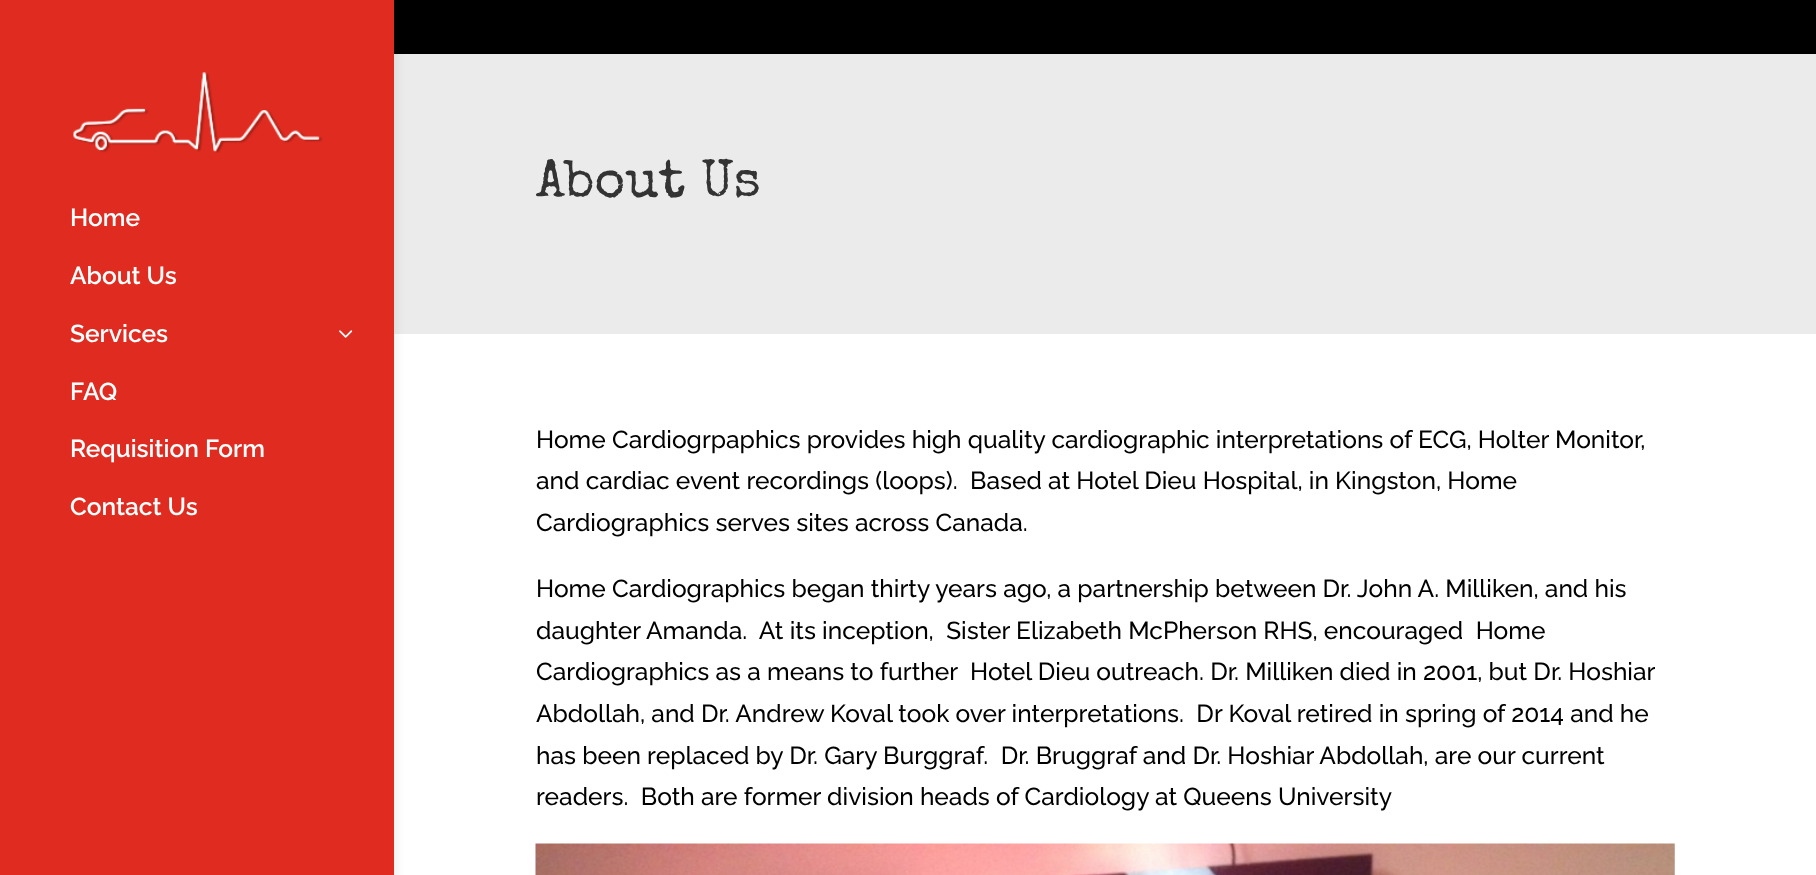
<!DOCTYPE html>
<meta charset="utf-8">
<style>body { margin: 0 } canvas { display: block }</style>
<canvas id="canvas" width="1816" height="875"></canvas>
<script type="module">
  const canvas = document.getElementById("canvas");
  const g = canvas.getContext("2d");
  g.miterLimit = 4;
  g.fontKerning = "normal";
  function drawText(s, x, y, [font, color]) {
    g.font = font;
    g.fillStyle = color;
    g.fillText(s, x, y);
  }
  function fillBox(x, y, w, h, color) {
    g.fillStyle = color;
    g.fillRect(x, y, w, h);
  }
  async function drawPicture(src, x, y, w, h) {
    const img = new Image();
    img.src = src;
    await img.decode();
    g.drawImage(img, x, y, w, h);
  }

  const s1 = ["600 24.5px Raleway", "#FFFFFF"];
  const s2 = ["52.5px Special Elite", "#333333"];
  const s3 = ["500 24.5px Raleway", "#000000"];

  fillBox(0, 0, 1816, 875, "#FFFFFF");
  fillBox(394, 0, 1422, 54, "#000000");
  fillBox(394, 54, 1422, 280, "#EBEBEB");
  g.fillStyle = "rgba(0, 0, 0, 0.1)";
  g.filter = "blur(6px)";
  g.beginPath();
  g.rect(0, 0, 394, 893);
  g.fill();
  g.filter = "none";
  fillBox(0, 0, 394, 875, "#E02B20");
  await drawPicture("pic1.png", 73, 72, 250, 81);
  drawText("Home", 70, 226, s1);
  drawText("About Us", 70, 284, s1);
  drawText("Services", 70, 342, s1);
  await drawPicture("pic2.png", 339, 330, 14, 8);
  drawText("FAQ", 70, 400, s1);
  drawText("Requisition Form", 70, 457, s1);
  drawText("Contact Us", 70, 515, s1);
  drawText("About Us", 536, 196, s2);
  drawText("Home Cardiogrpaphics provides high quality cardiographic interpretations of ECG, Holter Monitor,", 536, 448, s3);
  drawText("and cardiac event recordings (loops).  Based at Hotel Dieu Hospital, in Kingston, Home", 536, 489, s3);
  drawText("Cardiographics serves sites across Canada.", 536, 531, s3);
  drawText("Home Cardiographics began thirty years ago, a partnership between Dr. John A. Milliken, and his", 536, 597, s3);
  drawText("daughter Amanda.  At its inception,  Sister Elizabeth McPherson RHS, encouraged  Home", 536, 639, s3);
  drawText("Cardiographics as a means to further  Hotel Dieu outreach. Dr. Milliken died in 2001, but Dr. Hoshiar", 536, 680, s3);
  drawText("Abdollah, and Dr. Andrew Koval took over interpretations.  Dr Koval retired in spring of 2014 and he", 536, 722, s3);
  drawText("has been replaced by Dr. Gary Burggraf.  Dr. Bruggraf and Dr. Hoshiar Abdollah, are our current", 536, 764, s3);
  drawText("readers.  Both are former division heads of Cardiology at Queens University", 536, 805, s3);
  await drawPicture("pic3.png", 535, 843, 1140, 32);
</script>
